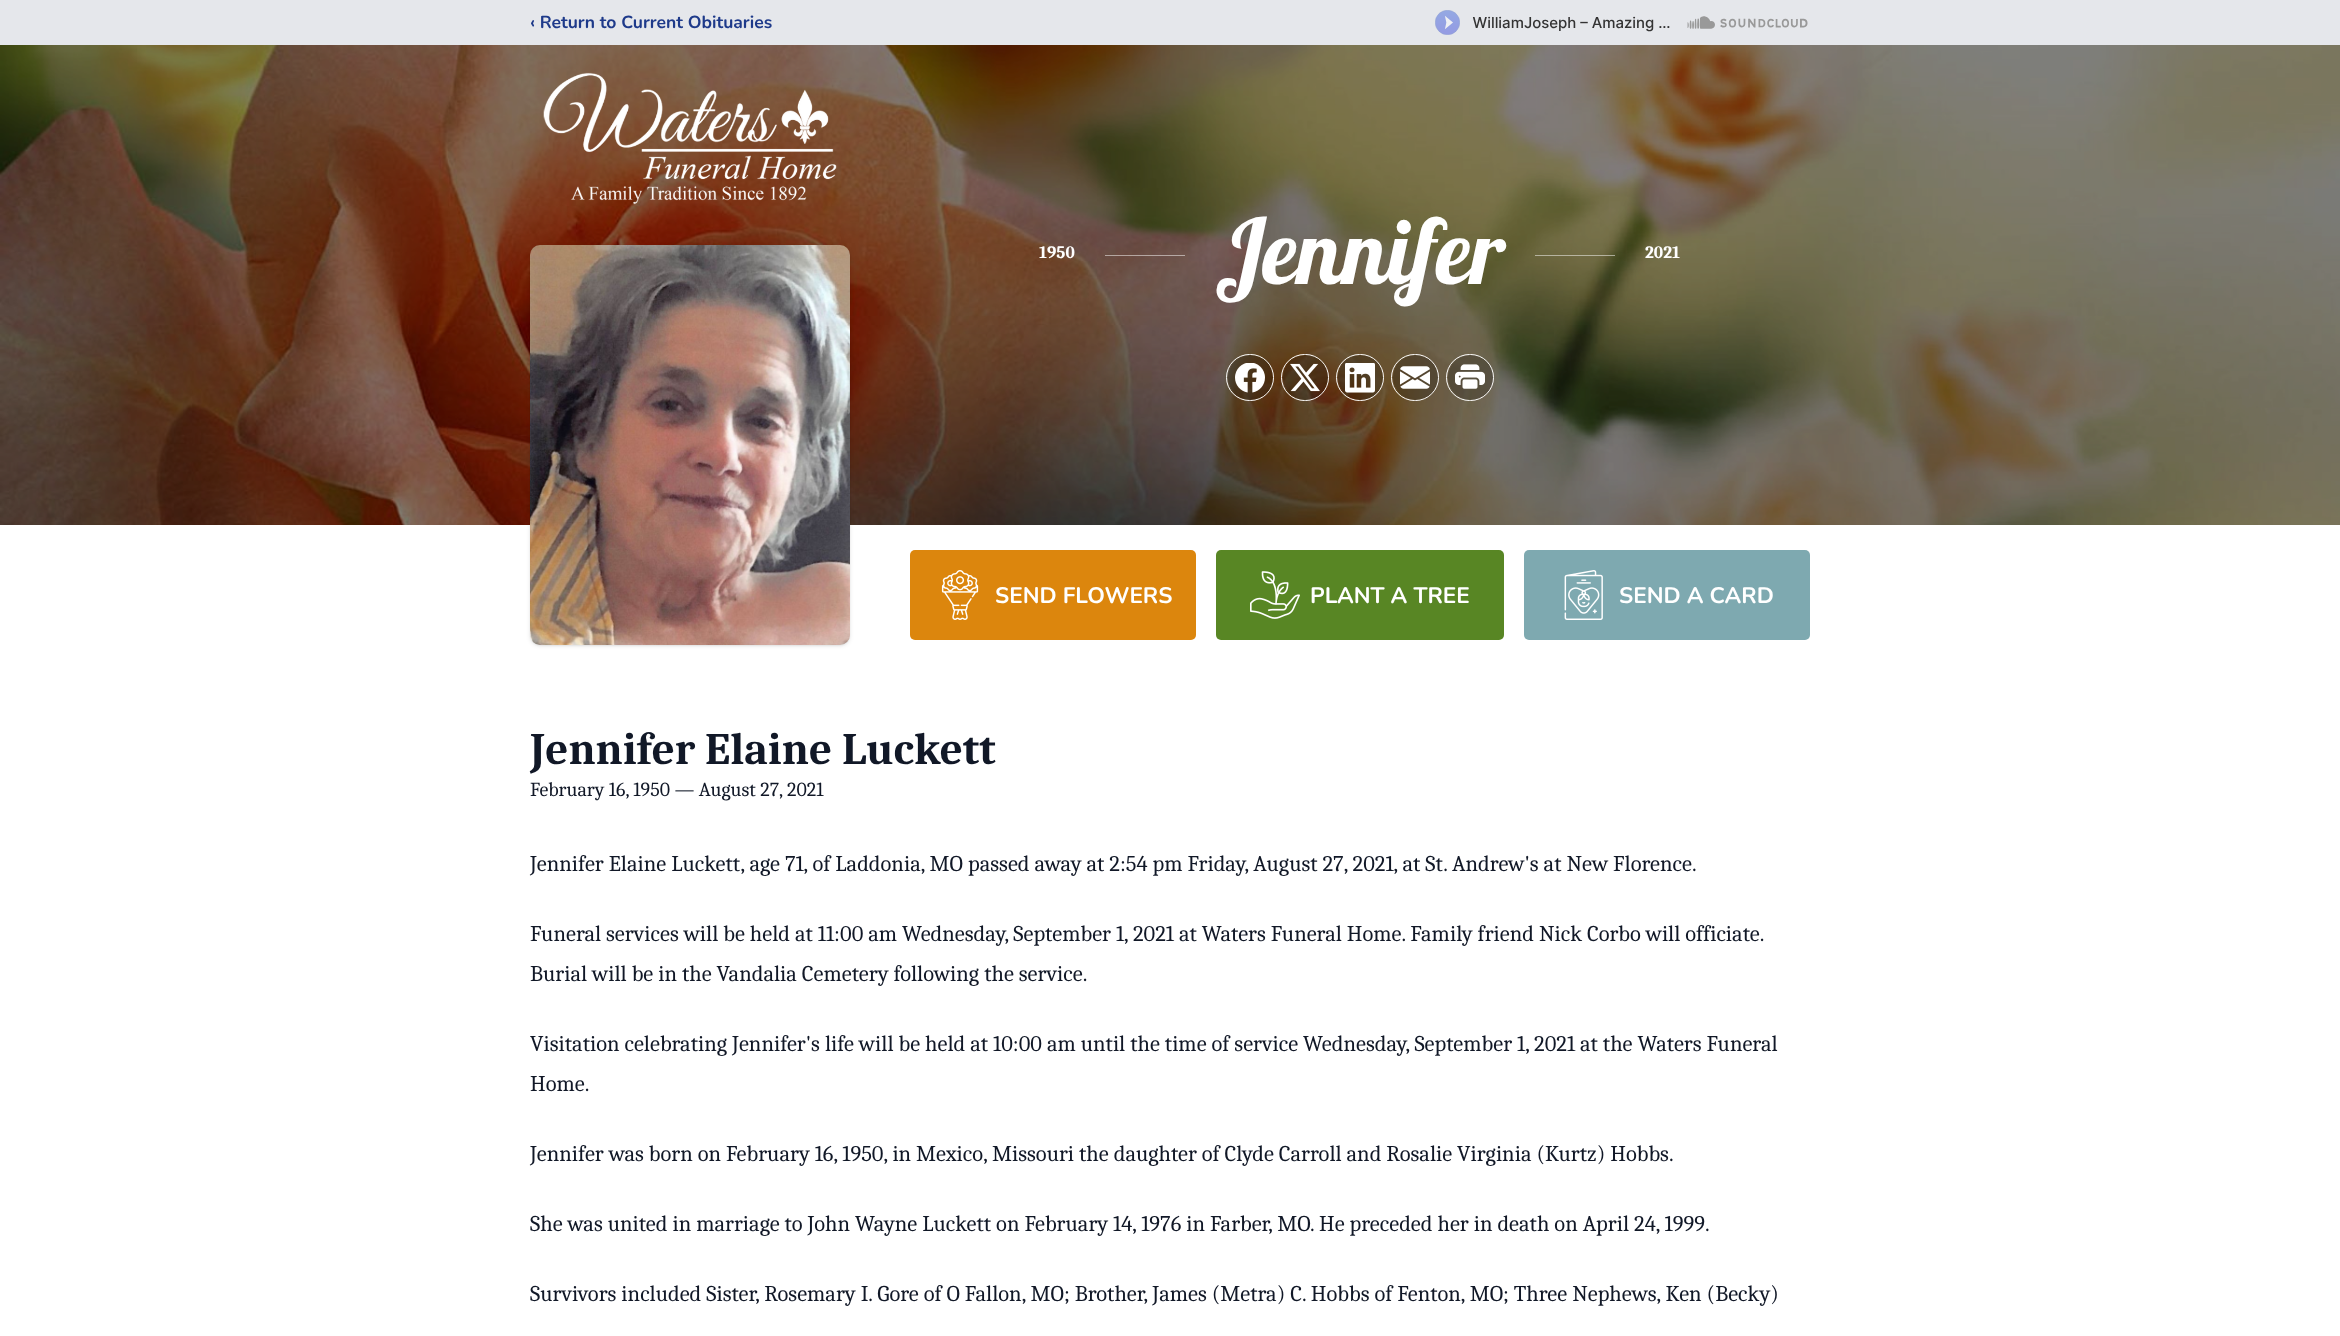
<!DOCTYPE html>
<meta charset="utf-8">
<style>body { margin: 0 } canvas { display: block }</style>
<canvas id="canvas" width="2340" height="1336"></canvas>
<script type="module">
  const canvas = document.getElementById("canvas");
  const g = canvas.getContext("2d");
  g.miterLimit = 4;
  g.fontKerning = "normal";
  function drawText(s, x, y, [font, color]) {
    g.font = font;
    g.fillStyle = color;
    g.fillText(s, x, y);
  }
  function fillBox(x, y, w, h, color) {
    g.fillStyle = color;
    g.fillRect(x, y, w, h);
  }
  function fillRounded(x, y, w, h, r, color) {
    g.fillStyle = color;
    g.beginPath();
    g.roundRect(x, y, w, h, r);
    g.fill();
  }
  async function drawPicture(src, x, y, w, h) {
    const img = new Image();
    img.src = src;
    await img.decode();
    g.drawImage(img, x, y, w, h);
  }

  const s1 = ["bold 17.5px Nunito", "#1E3A8A"];
  const s2 = ["bold 17.5px Caladea", "#FFFFFF"];
  const s3 = ["90px Lobster", "#FFFFFF"];
  const s4 = ["bold 22.5px Nunito", "#FFFFFF"];
  const s5 = ["bold 45px Caladea", "#111827"];
  const s6 = ["20px Caladea", "#111827"];
  const s7 = ["22.5px Caladea", "#111827"];

  fillBox(0, 0, 2340, 1336, "#FFFFFF");
  fillBox(0, 0, 2340, 45, "#E5E7EB");
  drawText("‹ Return to Current Obituaries", 530, 28, s1);
  await drawPicture("pic1.png", 1435, 10, 373, 25);
  await drawPicture("pic2.png", 0, 45, 2340, 480);
  await drawPicture("pic3.png", 543, 72, 294, 133);
  g.fillStyle = "rgba(0, 0, 0, 0.1)";
  g.filter = "blur(1px)";
  g.beginPath();
  g.roundRect(531, 248, 318, 397, 9);
  g.fill();
  g.filter = "none";
  g.filter = "blur(2px)";
  g.beginPath();
  g.roundRect(530, 246, 320, 400, 10);
  g.fill();
  g.filter = "none";
  await drawPicture("pic4.png", 530, 245, 320, 400);
  drawText("1950", 1039, 258, s2);
  fillBox(1105, 255, 80, 1, "rgba(255, 255, 255, 0.5)");
  drawText("Jennifer", 1215, 284, s3);
  fillBox(1535, 255, 80, 1, "rgba(255, 255, 255, 0.5)");
  drawText("2021", 1645, 258, s2);
  g.beginPath();
  g.roundRect(1226.5, 354.5, 47, 46, 23);
  g.strokeStyle = "#FFFFFF";
  g.stroke();
  g.fillStyle = "rgba(0, 0, 0, 0.2)";
  g.beginPath();
  g.arc(1250.5, 377.5, 22.5, 0, Math.PI * 2);
  g.fill();
  await drawPicture("pic5.png", 1235, 363, 30, 30);
  g.beginPath();
  g.roundRect(1281.5, 354.5, 47, 46, 23);
  g.stroke();
  g.beginPath();
  g.arc(1305.5, 377.5, 22.5, 0, Math.PI * 2);
  g.fill();
  await drawPicture("pic6.png", 1290, 363, 30, 29);
  g.beginPath();
  g.roundRect(1336.5, 354.5, 47, 46, 23);
  g.stroke();
  g.beginPath();
  g.arc(1360.5, 377.5, 22.5, 0, Math.PI * 2);
  g.fill();
  await drawPicture("pic7.png", 1345, 363, 30, 30);
  g.beginPath();
  g.roundRect(1391.5, 354.5, 47, 46, 23);
  g.stroke();
  g.beginPath();
  g.arc(1415.5, 377.5, 22.5, 0, Math.PI * 2);
  g.fill();
  await drawPicture("pic8.png", 1400, 366, 30, 23);
  g.beginPath();
  g.roundRect(1446.5, 354.5, 47, 46, 23);
  g.stroke();
  g.beginPath();
  g.arc(1470.5, 377.5, 22.5, 0, Math.PI * 2);
  g.fill();
  await drawPicture("pic9.png", 1455, 364, 30, 25);
  fillRounded(910, 550, 286, 90, 5, "#DC860D");
  await drawPicture("pic10.png", 941, 570, 38, 50);
  drawText("SEND FLOWERS", 995, 603, s4);
  fillRounded(1216, 550, 288, 90, 5, "#588624");
  await drawPicture("pic11.png", 1250, 571, 50, 48);
  drawText("PLANT A TREE", 1310, 603, s4);
  fillRounded(1524, 550, 286, 90, 5, "#7EA9B0");
  await drawPicture("pic12.png", 1564, 570, 39, 50);
  drawText("SEND A CARD", 1619, 603, s4);
  drawText("Jennifer Elaine Luckett", 530, 764, s5);
  drawText("February 16, 1950 — August 27, 2021", 530, 796, s6);
  drawText("Jennifer Elaine Luckett, age 71, of Laddonia, MO passed away at 2:54 pm Friday, August 27, 2021, at St. Andrew's at New Florence.", 530, 871, s7);
  drawText("Funeral services will be held at 11:00 am Wednesday, September 1, 2021 at Waters Funeral Home. Family friend Nick Corbo will officiate.", 530, 941, s7);
  drawText("Burial will be in the Vandalia Cemetery following the service.", 530, 981, s7);
  drawText("Visitation celebrating Jennifer's life will be held at 10:00 am until the time of service Wednesday, September 1, 2021 at the Waters Funeral", 530, 1051, s7);
  drawText("Home.", 530, 1091, s7);
  drawText("Jennifer was born on February 16, 1950, in Mexico, Missouri the daughter of Clyde Carroll and Rosalie Virginia (Kurtz) Hobbs.", 530, 1161, s7);
  drawText("She was united in marriage to John Wayne Luckett on February 14, 1976 in Farber, MO. He preceded her in death on April 24, 1999.", 530, 1231, s7);
  drawText("Survivors included Sister, Rosemary I. Gore of O Fallon, MO; Brother, James (Metra) C. Hobbs of Fenton, MO; Three Nephews, Ken (Becky)", 530, 1301, s7);
</script>
